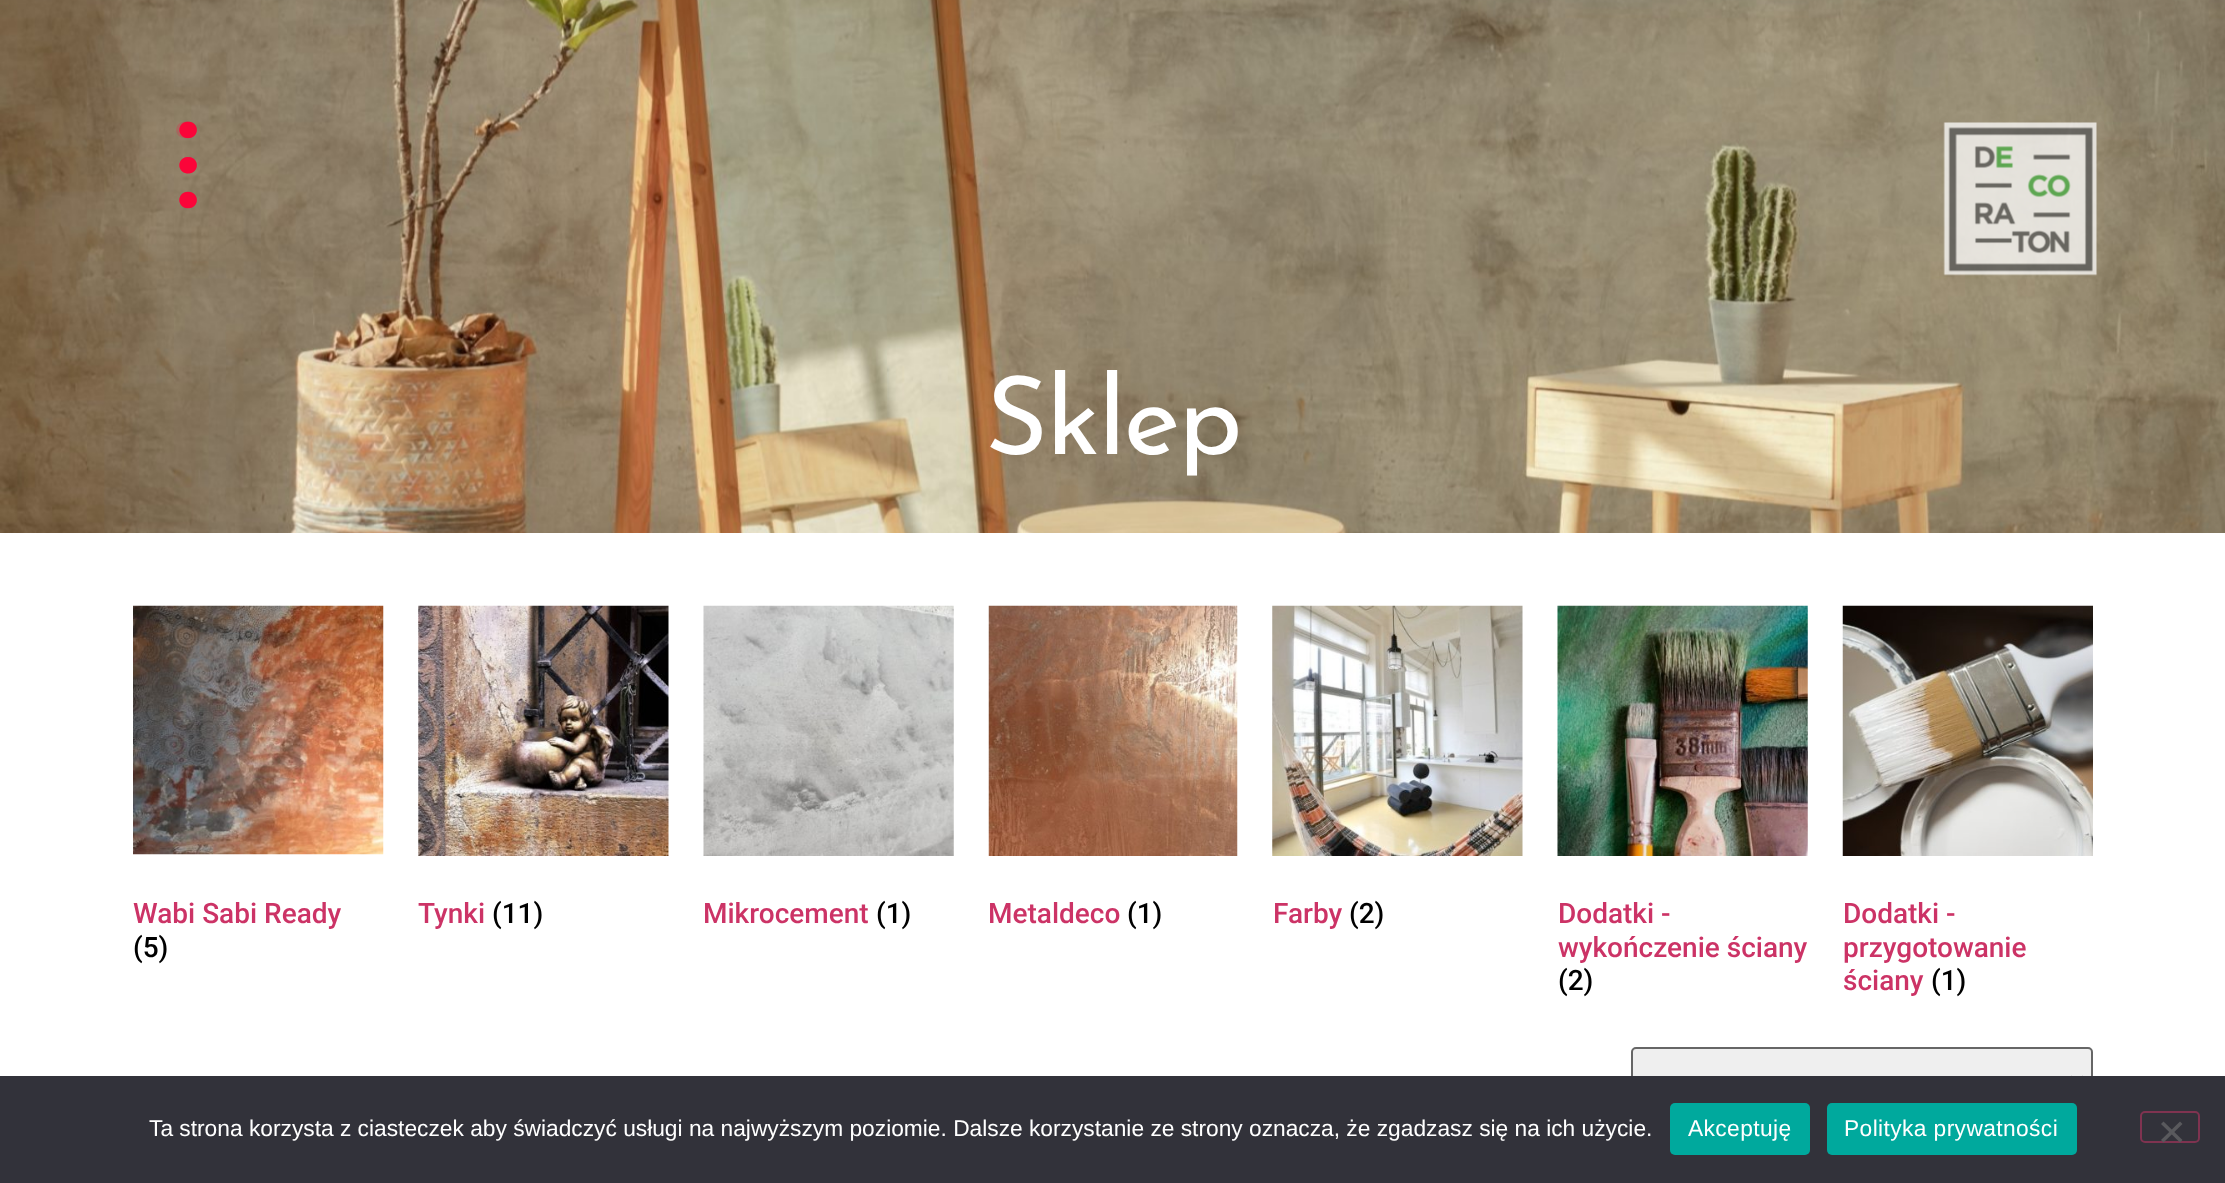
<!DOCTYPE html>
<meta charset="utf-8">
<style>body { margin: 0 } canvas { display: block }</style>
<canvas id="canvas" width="2225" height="1183"></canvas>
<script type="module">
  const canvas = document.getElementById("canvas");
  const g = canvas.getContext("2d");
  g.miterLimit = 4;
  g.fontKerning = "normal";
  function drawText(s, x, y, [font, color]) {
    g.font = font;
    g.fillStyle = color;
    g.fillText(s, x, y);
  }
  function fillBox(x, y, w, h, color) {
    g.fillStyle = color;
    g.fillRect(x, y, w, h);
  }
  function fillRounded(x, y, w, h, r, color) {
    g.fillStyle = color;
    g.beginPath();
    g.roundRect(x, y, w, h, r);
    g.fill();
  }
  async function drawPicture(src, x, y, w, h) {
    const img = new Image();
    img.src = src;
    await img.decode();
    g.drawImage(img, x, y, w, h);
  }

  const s1 = ["108.5px Josefin Sans", "#FFFFFF"];
  const s2 = ["500 28px Roboto", "#CC3366"];
  const s3 = ["500 28px Roboto", "#000000"];
  const s4 = ["22.75px Liberation Sans", "#FFFFFF"];

  fillBox(0, 0, 2225, 1183, "#FFFFFF");
  await drawPicture("pic3.png", 0, 0, 2225, 533);
  await drawPicture("pic1.png", 176, 121, 21, 88);
  await drawPicture("pic2.png", 1943, 122, 154, 154);
  g.letterSpacing = "-2px";
  drawText("Sklep", 985, 454, s1);
  await drawPicture("pic4.png", 133, 605, 251, 250);
  g.letterSpacing = "0px";
  drawText("Wabi Sabi Ready", 133, 923, s2);
  drawText("(5)", 133, 957, s3);
  await drawPicture("pic5.png", 418, 605, 251, 251);
  drawText("Tynki", 418, 923, s2);
  drawText("(11)", 492, 923, s3);
  await drawPicture("pic6.png", 703, 605, 251, 251);
  drawText("Mikrocement", 703, 923, s2);
  drawText("(1)", 876, 923, s3);
  await drawPicture("pic7.png", 988, 605, 250, 251);
  drawText("Metaldeco", 988, 923, s2);
  drawText("(1)", 1127, 923, s3);
  await drawPicture("pic8.png", 1272, 605, 251, 251);
  drawText("Farby", 1273, 923, s2);
  drawText("(2)", 1349, 923, s3);
  await drawPicture("pic9.png", 1557, 605, 251, 251);
  drawText("Dodatki -", 1558, 923, s2);
  drawText("wykończenie ściany", 1558, 957, s2);
  drawText("(2)", 1558, 990, s3);
  await drawPicture("pic10.png", 1842, 605, 251, 251);
  drawText("Dodatki -", 1843, 923, s2);
  drawText("przygotowanie", 1843, 957, s2);
  drawText("ściany", 1843, 990, s2);
  drawText("(1)", 1931, 990, s3);
  g.fillStyle = "#EFEFEF";
  g.beginPath();
  g.roundRect(1632, 1048, 460, 66, 4);
  g.fill();
  g.strokeStyle = "#666666";
  g.lineWidth = 2;
  g.stroke();
  g.beginPath();
  g.moveTo(2070, 1077);
  g.lineTo(2077, 1084);
  g.lineTo(2084, 1077);
  g.strokeStyle = "#000000";
  g.lineWidth = 3.5;
  g.stroke();
  fillBox(0, 1076, 2225, 107, "#32323A");
  drawText("Ta strona korzysta z ciasteczek aby świadczyć usługi na najwyższym poziomie. Dalsze korzystanie ze strony oznacza, że zgadzasz się na ich użycie.", 149, 1136, s4);
  fillRounded(1670, 1103, 140, 52, 5, "#00A99D");
  g.letterSpacing = "0.4px";
  drawText("Akceptuję", 1688, 1136, s4);
  fillRounded(1827, 1103, 250, 52, 5, "#00A99D");
  drawText("Polityka prywatności", 1844, 1136, s4);
  g.beginPath();
  g.roundRect(2141, 1112, 58, 30, 4);
  g.strokeStyle = "#7F3350";
  g.lineWidth = 2;
  g.stroke();
  g.fillStyle = "#59595D";
  g.beginPath();
  g.moveTo(2180, 1121.5);
  g.lineTo(2182.5, 1124);
  g.lineTo(2163.5, 1142.5);
  g.lineTo(2161, 1140);
  g.closePath();
  g.fill();
  g.beginPath();
  g.moveTo(2161, 1124);
  g.lineTo(2163.5, 1121.5);
  g.lineTo(2182.5, 1140);
  g.lineTo(2180, 1142.5);
  g.closePath();
  g.fill();
</script>
